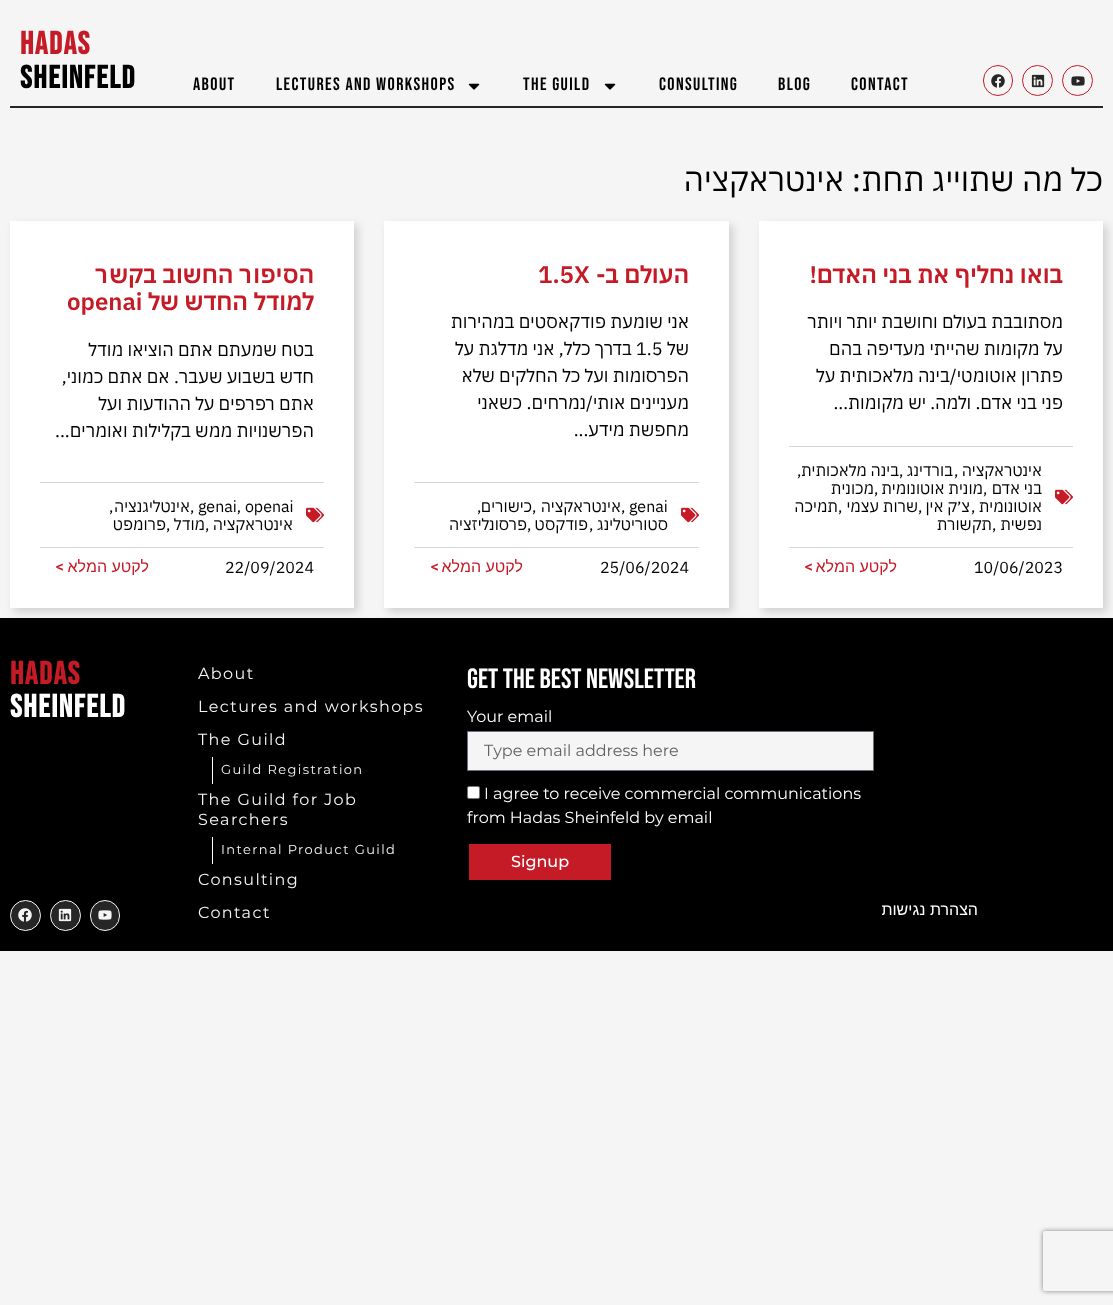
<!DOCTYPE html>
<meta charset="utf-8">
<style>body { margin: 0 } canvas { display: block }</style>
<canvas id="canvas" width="1113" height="1305"></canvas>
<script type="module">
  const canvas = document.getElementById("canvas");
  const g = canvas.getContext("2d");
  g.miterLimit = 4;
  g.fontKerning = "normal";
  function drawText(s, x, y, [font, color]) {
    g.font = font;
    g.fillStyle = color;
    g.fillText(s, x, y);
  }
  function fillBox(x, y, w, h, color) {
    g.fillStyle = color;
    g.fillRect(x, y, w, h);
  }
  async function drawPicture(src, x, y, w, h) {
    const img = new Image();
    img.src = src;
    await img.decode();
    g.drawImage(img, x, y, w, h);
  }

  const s1 = ["18px Bebas Neue", "#000000"];
  const s2 = ["bold 32px Bebas Neue", "#C51B27"];
  const s3 = ["bold 32px Bebas Neue", "#000000"];
  const s4 = ["32px IBM Plex Sans Hebrew", "#000000"];
  const s5 = ["600 24px IBM Plex Sans Hebrew", "#C51B27"];
  const s6 = ["18px IBM Plex Sans Hebrew", "#000000"];
  const s7 = ["16px IBM Plex Sans Hebrew", "#000000"];
  const s8 = ["16px Liberation Sans", "#C51B27"];
  const s9 = ["500 16px Roboto", "#C51B27"];
  const s10 = ["28px Bebas Neue", "#FFFFFF"];
  const s11 = ["16px Montserrat", "#FFFFFF"];
  const s12 = ["16px Montserrat", "#626262"];
  const s13 = ["500 16px Montserrat", "#FFFFFF"];
  const s14 = ["16px Liberation Sans", "#FFFFFF"];
  const s15 = ["16px Montserrat", "#F5F5F5"];
  const s16 = ["13px Montserrat", "#F5F5F5"];
  const s17 = ["bold 32px Bebas Neue", "#FFFFFF"];

  fillBox(0, 0, 1113, 1305, "#F5F5F5");
  g.beginPath();
  g.arc(1077.5, 80.5, 15, 0, Math.PI * 2);
  g.strokeStyle = "#C51B27";
  g.stroke();
  await drawPicture("pic1.png", 1071, 76, 14, 10);
  g.beginPath();
  g.arc(1037.5, 80.5, 15, 0, Math.PI * 2);
  g.stroke();
  await drawPicture("pic2.png", 1031, 74, 14, 14);
  g.beginPath();
  g.roundRect(983.5, 65.5, 29, 30, 14.5);
  g.stroke();
  await drawPicture("pic3.png", 991, 74, 14, 14);
  g.letterSpacing = "1.4px";
  drawText("Contact", 851, 90, s1);
  drawText("Blog", 778, 90, s1);
  drawText("Consulting", 659, 90, s1);
  await drawPicture("pic4.png", 604, 83, 12, 7);
  drawText("The Guild", 523, 90, s1);
  await drawPicture("pic4.png", 468, 83, 12, 7);
  drawText("Lectures and workshops", 276, 90, s1);
  drawText("About", 193, 90, s1);
  fillBox(10, 106, 1093, 2, "#262626");
  drawText("HADAS", 20, 54, s2);
  drawText("SHEINFELD", 20, 88, s3);
  g.letterSpacing = "0px";
  g.direction = "rtl";
  drawText("כל מה שתוייג תחת: אינטראקציה", 1103, 191, s4);
  g.fillStyle = "rgba(0, 0, 0, 0.15)";
  g.filter = "blur(4px)";
  g.beginPath();
  g.rect(763, 225, 344, 387);
  g.fill();
  g.filter = "none";
  fillBox(759, 221, 344, 387, "#FFFFFF");
  drawText("בואו נחליף את בני האדם!", 1063, 283, s5);
  drawText("מסתובבת בעולם וחושבת יותר ויותר", 1063, 328, s6);
  drawText("על מקומות שהייתי מעדיפה בהם", 1063, 355, s6);
  drawText("פתרון אוטומטי/בינה מלאכותית על", 1063, 382, s6);
  drawText("פני בני אדם. ולמה.", 1063, 409, s6);
  drawText("יש מקומות...", 926, 409, s6);
  fillBox(789, 446, 284, 1, "#D6D6D6");
  await drawPicture("pic5.png", 1055, 489, 18, 16);
  drawText("אינטראקציה", 1042, 476, s7);
  g.direction = "ltr";
  drawText(",", 954, 476, s7);
  g.direction = "rtl";
  drawText("בורדינג", 953, 476, s7);
  g.direction = "ltr";
  drawText(",", 899, 476, s7);
  g.direction = "rtl";
  drawText("בינה מלאכותית", 899, 476, s7);
  g.direction = "ltr";
  drawText(",", 797, 476, s7);
  g.direction = "rtl";
  drawText("בני אדם", 1042, 494, s7);
  drawText("מונית אוטונומית", 983, 494, s7);
  drawText("מכונית", 874, 494, s7);
  g.direction = "ltr";
  drawText(",", 983, 494, s7);
  drawText(",", 874, 494, s7);
  g.direction = "rtl";
  drawText("אוטונומית", 1042, 512, s7);
  g.direction = "ltr";
  drawText(",", 971, 512, s7);
  g.direction = "rtl";
  drawText("צ׳ק אין", 970, 512, s7);
  g.direction = "ltr";
  drawText(",", 918, 512, s7);
  g.direction = "rtl";
  drawText("שרות עצמי", 918, 512, s7);
  g.direction = "ltr";
  drawText(",", 838, 512, s7);
  g.direction = "rtl";
  drawText("תמיכה", 838, 512, s7);
  drawText("נפשית", 1042, 530, s7);
  g.direction = "ltr";
  drawText(",", 992, 530, s7);
  g.direction = "rtl";
  drawText("תקשורת", 992, 530, s7);
  fillBox(789, 547, 284, 1, "#D6D6D6");
  g.direction = "ltr";
  drawText("10/06/2023", 974, 573, s7);
  g.direction = "rtl";
  drawText("לקטע המלא", 897, 572, s8);
  drawText(">", 813, 572, s9);
  g.fillStyle = "rgba(0, 0, 0, 0.15)";
  g.filter = "blur(4px)";
  g.beginPath();
  g.rect(388, 225, 345, 387);
  g.fill();
  g.filter = "none";
  fillBox(384, 221, 345, 387, "#FFFFFF");
  drawText("העולם ב-", 689, 283, s5);
  g.direction = "ltr";
  drawText("1.5X", 538, 283, s5);
  g.direction = "rtl";
  drawText("אני שומעת פודקאסטים במהירות", 689, 328, s6);
  drawText("של", 689, 355, s6);
  g.direction = "ltr";
  drawText("1.5", 636, 355, s6);
  g.direction = "rtl";
  drawText("בדרך כלל, אני מדלגת על", 632, 355, s6);
  drawText("הפרסומות ועל כל החלקים שלא", 689, 382, s6);
  drawText("מעניינים אותי/נמרחים.", 689, 409, s6);
  drawText("כשאני", 522, 409, s6);
  drawText("מחפשת מידע...", 689, 436, s6);
  fillBox(414, 482, 285, 1, "#D6D6D6");
  await drawPicture("pic5.png", 681, 507, 18, 16);
  g.direction = "ltr";
  drawText("genai", 629, 512, s7);
  drawText(",", 621, 512, s7);
  g.direction = "rtl";
  drawText("אינטראקציה", 621, 512, s7);
  g.direction = "ltr";
  drawText(",", 532, 512, s7);
  g.direction = "rtl";
  drawText("כישורים", 532, 512, s7);
  g.direction = "ltr";
  drawText(",", 477, 512, s7);
  g.direction = "rtl";
  drawText("סטוריטלינג", 668, 530, s7);
  g.direction = "ltr";
  drawText(",", 589, 530, s7);
  g.direction = "rtl";
  drawText("פודקסט", 588, 530, s7);
  g.direction = "ltr";
  drawText(",", 527, 530, s7);
  g.direction = "rtl";
  drawText("פרסונליזציה", 527, 530, s7);
  fillBox(414, 547, 285, 1, "#D6D6D6");
  g.direction = "ltr";
  drawText("25/06/2024", 600, 573, s7);
  g.direction = "rtl";
  drawText("לקטע המלא", 523, 572, s8);
  drawText(">", 439, 572, s9);
  g.fillStyle = "rgba(0, 0, 0, 0.15)";
  g.filter = "blur(4px)";
  g.beginPath();
  g.rect(14, 225, 344, 387);
  g.fill();
  g.filter = "none";
  fillBox(10, 221, 344, 387, "#FFFFFF");
  drawText("הסיפור החשוב בקשר", 314, 283, s5);
  drawText("למודל החדש של", 314, 310, s5);
  g.direction = "ltr";
  drawText("openai", 67, 310, s5);
  g.direction = "rtl";
  drawText("בטח שמעתם אתם הוציאו מודל", 314, 356, s6);
  drawText("חדש בשבוע שעבר. אם אתם כמוני,", 314, 383, s6);
  drawText("אתם רפרפים על ההודעות ועל", 314, 410, s6);
  drawText("הפרשנויות ממש בקלילות ואומרים...", 314, 437, s6);
  fillBox(40, 482, 284, 1, "#D6D6D6");
  await drawPicture("pic5.png", 306, 507, 18, 16);
  g.direction = "ltr";
  drawText("genai, openai", 198, 512, s7);
  drawText(",", 190, 512, s7);
  g.direction = "rtl";
  drawText("אינטליגנציה", 190, 512, s7);
  g.direction = "ltr";
  drawText(",", 109, 512, s7);
  g.direction = "rtl";
  drawText("אינטראקציה", 293, 530, s7);
  g.direction = "ltr";
  drawText(",", 205, 530, s7);
  g.direction = "rtl";
  drawText("מודל", 205, 530, s7);
  g.direction = "ltr";
  drawText(",", 166, 530, s7);
  g.direction = "rtl";
  drawText("פרומפט", 166, 530, s7);
  fillBox(40, 547, 284, 1, "#D6D6D6");
  g.direction = "ltr";
  drawText("22/09/2024", 225, 573, s7);
  g.direction = "rtl";
  drawText("לקטע המלא", 149, 572, s8);
  drawText(">", 64, 572, s9);
  fillBox(0, 618, 1113, 333, "#000000");
  g.direction = "ltr";
  drawText("get the best newsletter", 467, 688, s10);
  drawText("Your email", 467, 722, s11);
  g.fillStyle = "#F5F5F5";
  g.beginPath();
  g.rect(467.5, 731.5, 406, 39);
  g.fill();
  g.strokeStyle = "#69727D";
  g.stroke();
  drawText("Type email address here", 484, 756, s12);
  drawText("I agree to receive commercial communications", 484, 799, s11);
  g.beginPath();
  g.roundRect(467.5, 786.5, 12, 12, 1.5);
  g.fill();
  g.strokeStyle = "#767676";
  g.stroke();
  drawText("from Hadas Sheinfeld by email", 467, 823, s11);
  fillBox(469, 844, 142, 36, "#C51B27");
  drawText("Signup", 511, 867, s13);
  g.save();
  g.beginPath();
  g.moveTo(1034, 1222);
  g.lineTo(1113, 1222);
  g.lineTo(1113, 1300);
  g.lineTo(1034, 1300);
  g.closePath();
  g.moveTo(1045, 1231);
  g.lineTo(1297, 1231);
  g.bezierCurveTo(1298, 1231, 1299, 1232, 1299, 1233);
  g.lineTo(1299, 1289);
  g.bezierCurveTo(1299, 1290, 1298, 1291, 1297, 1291);
  g.lineTo(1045, 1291);
  g.bezierCurveTo(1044, 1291, 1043, 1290, 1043, 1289);
  g.lineTo(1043, 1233);
  g.bezierCurveTo(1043, 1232, 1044, 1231, 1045, 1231);
  g.closePath();
  g.clip("evenodd");
  g.fillStyle = "#808080";
  g.filter = "blur(2.5px)";
  g.beginPath();
  g.roundRect(1043, 1231, 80, 60, 2);
  g.fill();
  g.filter = "none";
  g.restore();
  g.direction = "rtl";
  drawText("הצהרת נגישות", 978, 915, s14);
  g.letterSpacing = "1.4px";
  g.direction = "ltr";
  drawText("About", 198, 679, s15);
  drawText("Lectures and workshops", 198, 712, s15);
  drawText("The Guild", 198, 745, s15);
  fillBox(212, 757, 1, 27, "#FFFFFF");
  drawText("Guild Registration", 221, 774, s16);
  drawText("The Guild for Job", 198, 805, s15);
  drawText("Searchers", 198, 825, s15);
  fillBox(212, 837, 1, 27, "#FFFFFF");
  drawText("Internal Product Guild", 221, 854, s16);
  drawText("Consulting", 198, 885, s15);
  drawText("Contact", 198, 918, s15);
  drawText("HADAS", 10, 684, s2);
  drawText("SHEINFELD", 10, 717, s17);
  g.fillStyle = "#262626";
  g.beginPath();
  g.roundRect(90.5, 900.5, 29, 30, 14.5);
  g.fill();
  g.strokeStyle = "#F5F5F5";
  g.stroke();
  await drawPicture("pic6.png", 98, 910, 14, 10);
  g.beginPath();
  g.arc(65.5, 915.5, 15, 0, Math.PI * 2);
  g.fill();
  g.stroke();
  await drawPicture("pic7.png", 58, 908, 14, 14);
  g.beginPath();
  g.arc(25.5, 915.5, 15, 0, Math.PI * 2);
  g.fill();
  g.stroke();
  await drawPicture("pic8.png", 18, 908, 14, 14);
</script>
